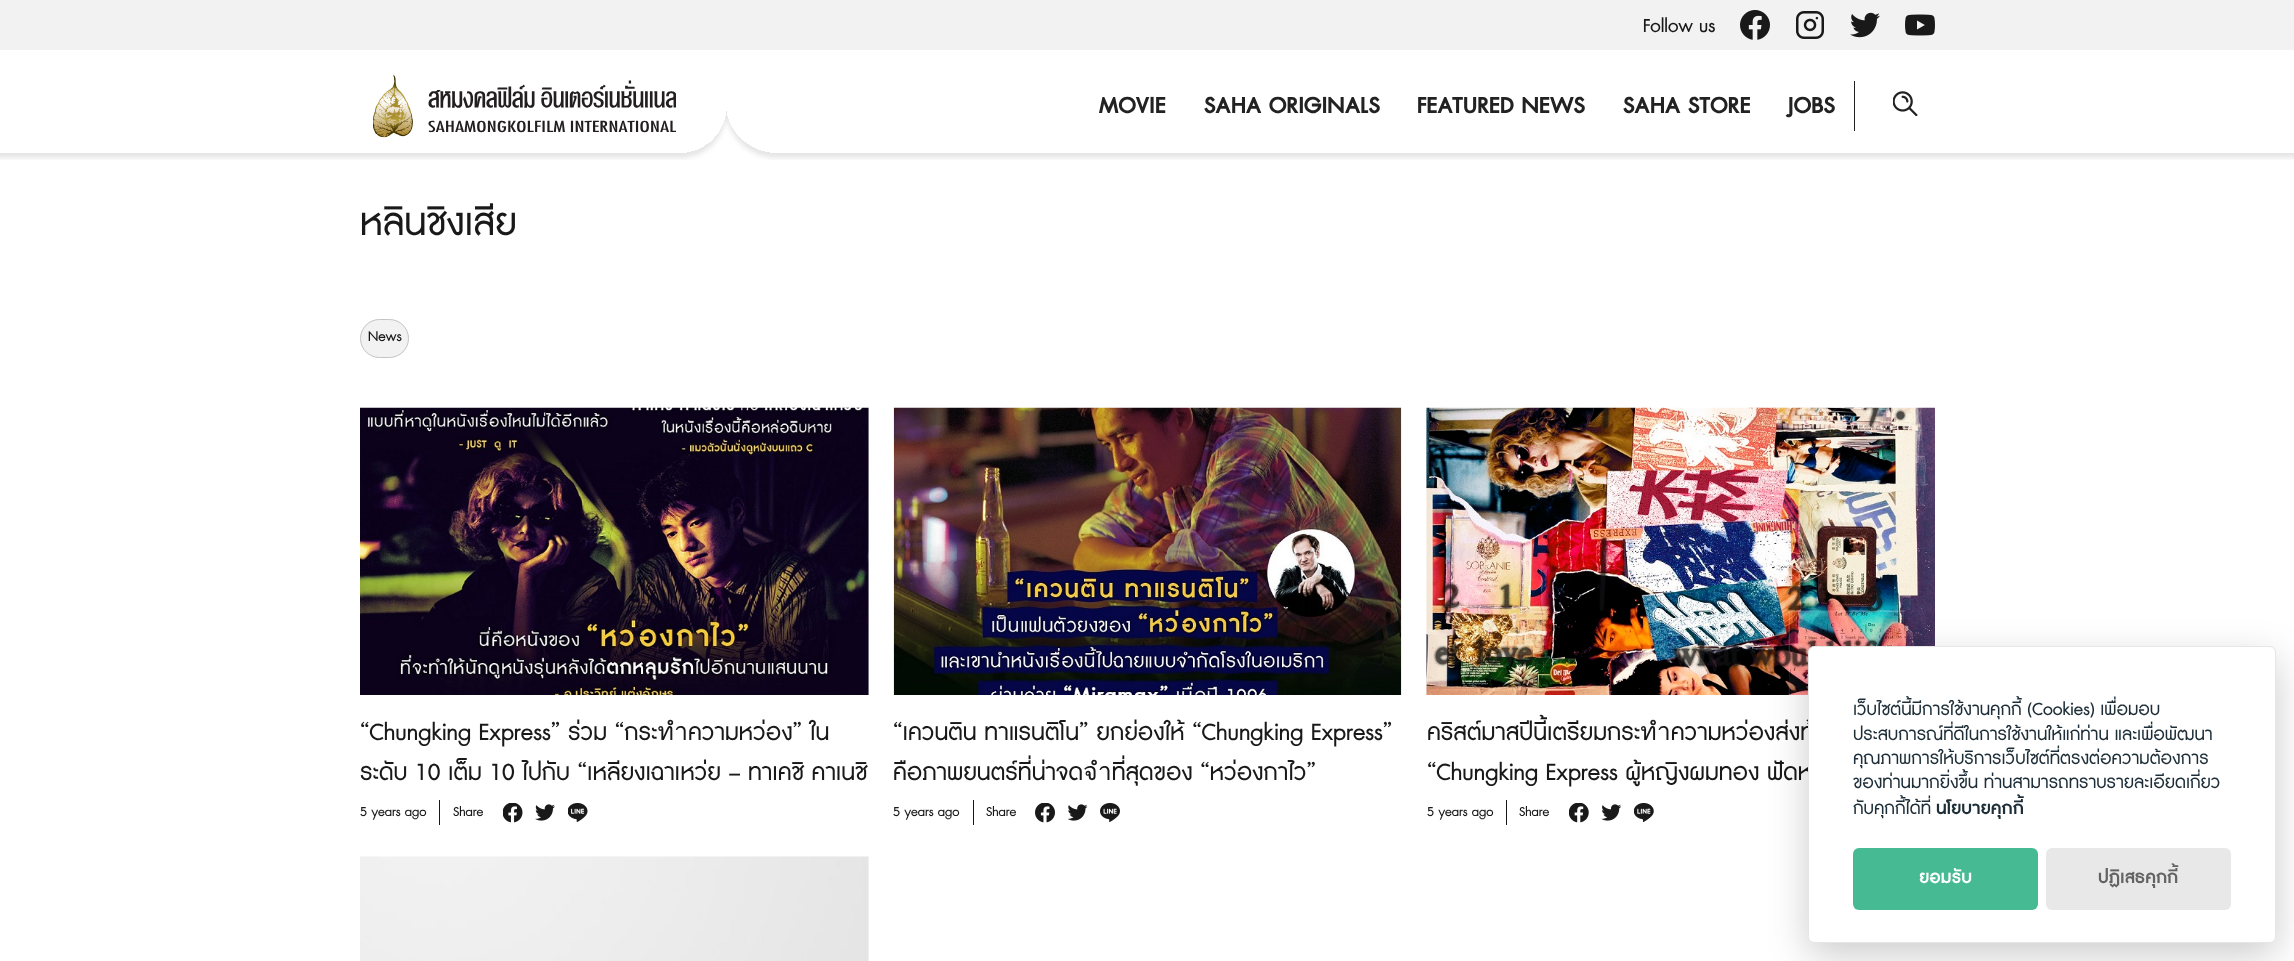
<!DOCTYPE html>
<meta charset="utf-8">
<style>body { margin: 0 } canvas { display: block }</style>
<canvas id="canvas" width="2294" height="961"></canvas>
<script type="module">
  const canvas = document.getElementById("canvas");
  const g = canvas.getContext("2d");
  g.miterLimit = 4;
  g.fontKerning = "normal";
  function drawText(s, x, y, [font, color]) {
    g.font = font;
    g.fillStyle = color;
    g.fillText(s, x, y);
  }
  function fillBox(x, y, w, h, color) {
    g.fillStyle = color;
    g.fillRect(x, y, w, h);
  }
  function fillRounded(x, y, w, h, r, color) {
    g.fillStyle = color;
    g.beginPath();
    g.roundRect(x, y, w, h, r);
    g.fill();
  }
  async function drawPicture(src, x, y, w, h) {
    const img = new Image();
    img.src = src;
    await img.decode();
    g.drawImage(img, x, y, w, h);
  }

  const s1 = ["20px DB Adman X", "#191919"];
  const s2 = ["bold 25px DB Adman X", "#222222"];
  const s3 = ["40px DB Adman X", "#191919"];
  const s4 = ["15px DB Adman X", "#191919"];
  const s5 = ["25px DB Adman X", "#191919"];
  const s6 = ["13.75px DB Adman X", "#191919"];
  const s7 = ["18.75px DB Adman X", "#1D2E38"];
  const s8 = ["bold 18.75px DB Adman X", "#1D2E38"];
  const s9 = ["bold 18.75px DB Adman X", "#FFFFFF"];
  const s10 = ["bold 18.75px DB Adman X", "#636363"];

  fillBox(0, 0, 2294, 961, "#FFFFFF");
  fillBox(0, 0, 2294, 50, "#F2F2F2");
  drawText("Follow us", 1643, 32, s1);
  await drawPicture("pic1.png", 1740, 10, 30, 30);
  await drawPicture("pic2.png", 1796, 11, 28, 28);
  await drawPicture("pic3.png", 1850, 12, 30, 26);
  await drawPicture("pic4.png", 1905, 14, 30, 22);
  await drawPicture("pic5.png", 0, 50, 2294, 110);
  await drawPicture("pic6.png", 373, 75, 303, 63);
  drawText("MOVIE", 1099, 113, s2);
  drawText("SAHA ORIGINALS", 1204, 113, s2);
  drawText("FEATURED NEWS", 1417, 113, s2);
  drawText("SAHA STORE", 1623, 113, s2);
  drawText("JOBS", 1788, 113, s2);
  fillBox(1854, 81, 1, 50, "#222222");
  await drawPicture("pic7.png", 1893, 91, 25, 25);
  drawText("หลินชิงเสีย", 360, 235, s3);
  g.fillStyle = "#F2F2F2";
  g.beginPath();
  g.roundRect(360.5, 319.5, 48, 38, 19);
  g.fill();
  g.strokeStyle = "#C4C4C4";
  g.stroke();
  drawText("News", 368, 341, s4);
  await drawPicture("pic8.png", 360, 407, 509, 288);
  drawText("“Chungking Express” ร่วม “กระทำความหว่อง” ใน", 360, 740, s5);
  drawText("ระดับ 10 เต็ม 10 ไปกับ “เหลียงเฉาเหว่ย – ทาเคชิ คาเนชิ", 360, 780, s5);
  drawText("5 years ago", 360, 816, s6);
  fillBox(439, 800, 1, 25, "#191919");
  drawText("Share", 453, 816, s6);
  await drawPicture("pic9.png", 503, 803, 20, 20);
  await drawPicture("pic10.png", 535, 804, 20, 17);
  await drawPicture("pic11.png", 568, 803, 20, 19);
  await drawPicture("pic12.png", 893, 407, 509, 288);
  drawText("“เควนติน ทาแรนติโน” ยกย่องให้ “Chungking Express”", 893, 740, s5);
  g.save();
  g.beginPath();
  g.rect(894, 714, 507, 80);
  g.clip();
  drawText("คือภาพยนตร์ที่น่าจดจำที่สุดของ “หว่องกาไว”", 893, 780, s5);
  g.restore();
  drawText("5 years ago", 893, 816, s6);
  fillBox(973, 800, 1, 25, "#191919");
  drawText("Share", 986, 816, s6);
  await drawPicture("pic13.png", 1035, 803, 20, 20);
  await drawPicture("pic14.png", 1068, 804, 20, 17);
  await drawPicture("pic15.png", 1100, 803, 20, 19);
  await drawPicture("pic16.png", 1426, 407, 509, 288);
  drawText("คริสต์มาสปีนี้เตรียมกระทำความหว่องส่งท้", 1427, 740, s5);
  drawText("“Chungking Express ผู้หญิงผมทอง ฟัดห", 1427, 780, s5);
  drawText("5 years ago", 1427, 816, s6);
  fillBox(1506, 800, 1, 25, "#191919");
  drawText("Share", 1519, 816, s6);
  await drawPicture("pic17.png", 1569, 803, 20, 20);
  await drawPicture("pic18.png", 1601, 804, 20, 17);
  await drawPicture("pic19.png", 1634, 803, 20, 19);
  await drawPicture("pic20.png", 360, 856, 509, 105);
  g.fillStyle = "rgba(2, 2, 3, 0.2)";
  g.filter = "blur(19px)";
  g.beginPath();
  g.roundRect(1808, 659, 468, 296, 6);
  g.fill();
  g.filter = "none";
  g.fillStyle = "#FFFFFF";
  g.beginPath();
  g.roundRect(1808.5, 646.5, 467, 296, 5.5);
  g.fill();
  g.strokeStyle = "#E6E6E6";
  g.stroke();
  drawText("เว็บไซต์นี้มีการใช้งานคุกกี้ (Cookies) เพื่อมอบ", 1853, 715, s7);
  drawText("ประสบการณ์ที่ดีในการใช้งานให้แก่ท่าน และเพื่อพัฒนา", 1853, 740, s7);
  drawText("คุณภาพการให้บริการเว็บไซต์ที่ตรงต่อความต้องการ", 1853, 764, s7);
  drawText("ของท่านมากยิ่งขึ้น ท่านสามารถทราบรายละเอียดเกี่ยว", 1853, 788, s7);
  drawText("กับคุกกี้ได้ที่", 1853, 814, s7);
  drawText("นโยบายคุกกี้", 1936, 814, s8);
  fillRounded(1853, 848, 185, 62, 6, "#46BA92");
  drawText("ยอมรับ", 1919, 883, s9);
  fillRounded(2046, 848, 185, 62, 6, "#E8E8E8");
  drawText("ปฏิเสธคุกกี้", 2098, 883, s10);
</script>
